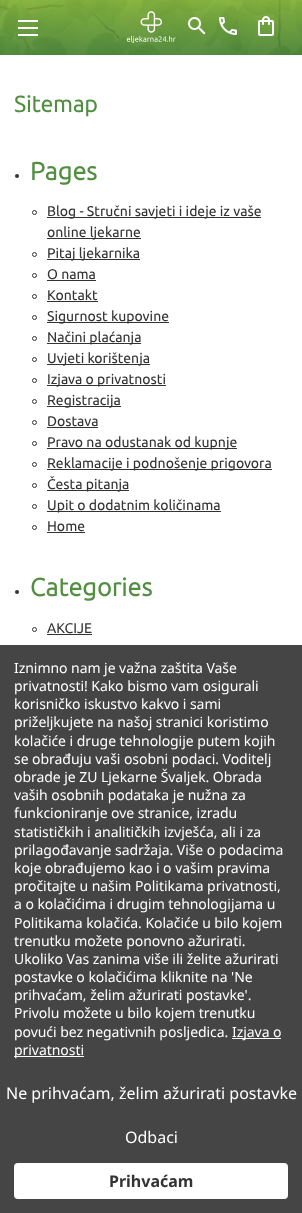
<!DOCTYPE html>
<meta charset="utf-8">
<style>body { margin: 0 } canvas { display: block }</style>
<canvas id="canvas" width="302" height="1213"></canvas>
<script type="module">
  const canvas = document.getElementById("canvas");
  const g = canvas.getContext("2d");
  g.miterLimit = 4;
  g.fontKerning = "normal";
  function drawText(s, x, y, [font, color]) {
    g.font = font;
    g.fillStyle = color;
    g.fillText(s, x, y);
  }
  function fillBox(x, y, w, h, color) {
    g.fillStyle = color;
    g.fillRect(x, y, w, h);
  }
  function fillRounded(x, y, w, h, r, color) {
    g.fillStyle = color;
    g.beginPath();
    g.roundRect(x, y, w, h, r);
    g.fill();
  }
  async function drawPicture(src, x, y, w, h) {
    const img = new Image();
    img.src = src;
    await img.decode();
    g.drawImage(img, x, y, w, h);
  }
  let gradient;

  const s1 = ["bold 22.5px Ubuntu", "#518E40"];
  const s2 = ["bold 25px Ubuntu", "#518E40"];
  const s3 = ["14px Ubuntu", "#333333"];
  const s4 = ["14px Noto Sans", "#FFFFFF"];
  const s5 = ["16px Noto Sans", "#FFFFFF"];
  const s6 = ["bold 16px Noto Sans", "#333333"];

  fillBox(0, 0, 302, 1213, "#FFFFFF");
  gradient = g.createLinearGradient(151, 0, 151, 55);
  gradient.addColorStop(0, "#95C444");
  gradient.addColorStop(0.99, "#518E40");
  g.fillStyle = gradient;
  g.fillRect(0, 0, 302, 55);
  await drawPicture("pic1.png", 0, 0, 302, 55);
  fillBox(18, 27, 20, 2, "#FFFFFF");
  fillBox(18, 20, 20, 2, "#FFFFFF");
  fillBox(18, 34, 20, 2, "#FFFFFF");
  await drawPicture("pic2.png", 126, 11, 50, 32);
  await drawPicture("pic3.png", 188, 17, 18, 18);
  await drawPicture("pic4.png", 219, 17, 18, 18);
  await drawPicture("pic5.png", 258, 16, 16, 20);
  g.letterSpacing = "0.25px";
  drawText("Sitemap", 14, 112, s1);
  g.fillStyle = "#333333";
  g.beginPath();
  g.arc(17, 176, 2, 0, Math.PI * 2);
  g.fill();
  drawText("Pages", 30, 180, s2);
  g.beginPath();
  g.arc(34.5, 212.5, 2, 0, Math.PI * 2);
  g.strokeStyle = "#333333";
  g.stroke();
  fillBox(47, 217, 214, 1, "#333333");
  g.letterSpacing = "0px";
  drawText("Blog - Stručni savjeti i ideje iz vaše", 47, 216, s3);
  fillBox(47, 238, 94, 1, "#333333");
  drawText("online ljekarne", 47, 237, s3);
  g.beginPath();
  g.arc(34.5, 254.5, 2, 0, Math.PI * 2);
  g.stroke();
  fillBox(47, 259, 93, 1, "#333333");
  drawText("Pitaj ljekarnika", 47, 258, s3);
  g.beginPath();
  g.arc(34.5, 275.5, 2, 0, Math.PI * 2);
  g.stroke();
  drawText("O nama", 47, 279, s3);
  fillBox(47, 280, 49, 1, "#333333");
  g.beginPath();
  g.arc(34.5, 296.5, 2, 0, Math.PI * 2);
  g.stroke();
  drawText("Kontakt", 47, 300, s3);
  fillBox(47, 301, 51, 1, "#333333");
  g.beginPath();
  g.arc(34.5, 317.5, 2, 0, Math.PI * 2);
  g.stroke();
  fillBox(47, 322, 122, 1, "#333333");
  drawText("Sigurnost kupovine", 47, 321, s3);
  g.beginPath();
  g.arc(34.5, 338.5, 2, 0, Math.PI * 2);
  g.stroke();
  fillBox(47, 343, 94, 1, "#333333");
  drawText("Načini plaćanja", 47, 342, s3);
  g.beginPath();
  g.arc(34.5, 359.5, 2, 0, Math.PI * 2);
  g.stroke();
  fillBox(47, 364, 103, 1, "#333333");
  drawText("Uvjeti korištenja", 47, 363, s3);
  g.beginPath();
  g.arc(34.5, 380.5, 2, 0, Math.PI * 2);
  g.stroke();
  fillBox(47, 385, 119, 1, "#333333");
  drawText("Izjava o privatnosti", 47, 384, s3);
  g.beginPath();
  g.arc(34.5, 401.5, 2, 0, Math.PI * 2);
  g.stroke();
  fillBox(47, 406, 74, 1, "#333333");
  drawText("Registracija", 47, 405, s3);
  g.beginPath();
  g.arc(34.5, 422.5, 2, 0, Math.PI * 2);
  g.stroke();
  drawText("Dostava", 47, 426, s3);
  fillBox(47, 427, 51, 1, "#333333");
  g.beginPath();
  g.arc(34.5, 443.5, 2, 0, Math.PI * 2);
  g.stroke();
  fillBox(47, 448, 190, 1, "#333333");
  drawText("Pravo na odustanak od kupnje", 47, 447, s3);
  g.beginPath();
  g.arc(34.5, 464.5, 2, 0, Math.PI * 2);
  g.stroke();
  fillBox(47, 469, 225, 1, "#333333");
  drawText("Reklamacije i podnošenje prigovora", 47, 468, s3);
  g.beginPath();
  g.arc(34.5, 485.5, 2, 0, Math.PI * 2);
  g.stroke();
  fillBox(47, 490, 82, 1, "#333333");
  drawText("Česta pitanja", 47, 489, s3);
  g.beginPath();
  g.arc(34.5, 506.5, 2, 0, Math.PI * 2);
  g.stroke();
  fillBox(47, 511, 174, 1, "#333333");
  drawText("Upit o dodatnim količinama", 47, 510, s3);
  g.beginPath();
  g.arc(34.5, 527.5, 2, 0, Math.PI * 2);
  g.stroke();
  drawText("Home", 47, 531, s3);
  fillBox(47, 532, 38, 1, "#333333");
  g.beginPath();
  g.arc(17, 592, 2, 0, Math.PI * 2);
  g.fill();
  g.letterSpacing = "0.25px";
  drawText("Categories", 30, 596, s2);
  g.beginPath();
  g.arc(34.5, 629.5, 2, 0, Math.PI * 2);
  g.stroke();
  g.letterSpacing = "0px";
  drawText("AKCIJE", 47, 633, s3);
  fillBox(47, 634, 45, 1, "#333333");
  fillBox(0, 645, 302, 568, "#454545");
  g.letterSpacing = "-0.05px";
  drawText("Iznimno nam je važna zaštita Vaše", 14, 673, s4);
  drawText("privatnosti! Kako bismo vam osigurali", 14, 691, s4);
  drawText("korisničko iskustvo kakvo i sami", 14, 709, s4);
  drawText("priželjkujete na našoj stranici koristimo", 14, 727, s4);
  drawText("kolačiće i druge tehnologije putem kojih", 14, 746, s4);
  drawText("se obrađuju vaši osobni podaci. Voditelj", 14, 764, s4);
  drawText("obrade je ZU Ljekarne Švaljek. Obrada", 14, 782, s4);
  drawText("vaših osobnih podataka je nužna za", 14, 800, s4);
  drawText("funkcioniranje ove stranice, izradu", 14, 818, s4);
  drawText("statističkih i analitičkih izvješća, ali i za", 14, 837, s4);
  drawText("prilagođavanje sadržaja. Više o podacima", 14, 855, s4);
  drawText("koje obrađujemo kao i o vašim pravima", 14, 873, s4);
  drawText("pročitajte u našim Politikama privatnosti,", 14, 891, s4);
  drawText("a o kolačićima i drugim tehnologijama u", 14, 909, s4);
  drawText("Politikama kolačića. Kolačiće u bilo kojem", 14, 928, s4);
  drawText("trenutku možete ponovno ažurirati.", 14, 946, s4);
  drawText("Ukoliko Vas zanima više ili želite ažurirati", 14, 964, s4);
  drawText("postavke o kolačićima kliknite na 'Ne", 14, 982, s4);
  drawText("prihvaćam, želim ažurirati postavke'.", 14, 1000, s4);
  drawText("Privolu možete u bilo kojem trenutku", 14, 1018, s4);
  drawText("povući bez negativnih posljedica.", 14, 1037, s4);
  fillBox(232, 1038, 49, 1, "#FFFFFF");
  drawText("Izjava o", 232, 1037, s4);
  fillBox(14, 1056, 70, 1, "#FFFFFF");
  drawText("privatnosti", 14, 1055, s4);
  g.letterSpacing = "0px";
  drawText("Ne prihvaćam, želim ažurirati postavke", 6, 1099, s5);
  drawText("Odbaci", 125, 1143, s5);
  fillRounded(14, 1163, 274, 36, 4, "#FFFFFF");
  drawText("Prihvaćam", 109, 1187, s6);
</script>
